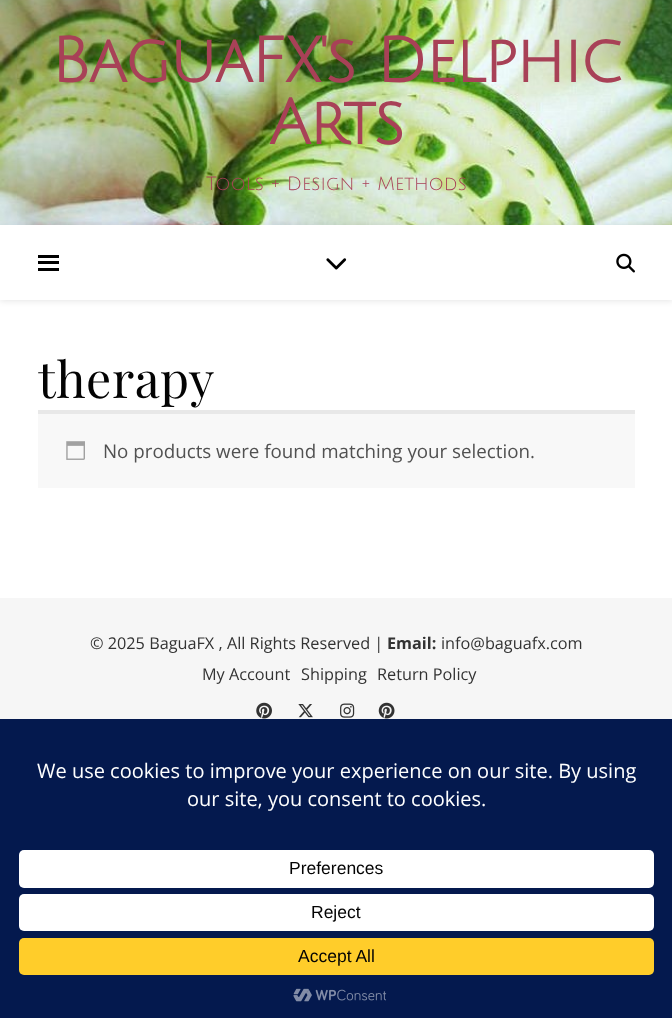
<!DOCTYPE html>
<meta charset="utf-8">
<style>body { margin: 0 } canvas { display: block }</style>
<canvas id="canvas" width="672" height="1018"></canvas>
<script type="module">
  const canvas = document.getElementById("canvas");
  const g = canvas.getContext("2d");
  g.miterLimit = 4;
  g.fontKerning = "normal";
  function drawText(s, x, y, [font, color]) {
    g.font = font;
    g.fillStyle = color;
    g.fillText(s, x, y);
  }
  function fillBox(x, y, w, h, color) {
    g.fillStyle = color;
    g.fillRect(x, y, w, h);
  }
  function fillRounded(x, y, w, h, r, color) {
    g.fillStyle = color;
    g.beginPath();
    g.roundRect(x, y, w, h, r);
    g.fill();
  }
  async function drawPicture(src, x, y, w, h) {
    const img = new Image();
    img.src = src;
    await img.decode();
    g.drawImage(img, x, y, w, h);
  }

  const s1 = ["bold 62.5px Julius Sans One", "#A84157"];
  const s2 = ["18.75px Julius Sans One", "#A84157"];
  const s3 = ["50px Playfair Display", "#030303"];
  const s4 = ["18.75px Open Sans", "#515151"];
  const s5 = ["16.25px Open Sans", "#333333"];
  const s6 = ["bold 16.25px Open Sans", "#333333"];
  const s7 = ["20px Open Sans", "#FFFFFF"];
  const s8 = ["17.5px Liberation Sans", "#030303"];

  fillBox(0, 0, 672, 1018, "#FFFFFF");
  await drawPicture("pic1.png", 0, 0, 672, 225);
  g.letterSpacing = "-1.25px";
  drawText("BaguaFX's Delphic", 51, 82, s1);
  drawText("Arts", 269, 144, s1);
  g.letterSpacing = "0px";
  drawText("Tools + Design + Methods", 206, 190, s2);
  g.save();
  g.beginPath();
  g.moveTo(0, 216);
  g.lineTo(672, 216);
  g.lineTo(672, 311);
  g.lineTo(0, 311);
  g.closePath();
  g.moveTo(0, 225);
  g.lineTo(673, 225);
  g.lineTo(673, 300);
  g.lineTo(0, 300);
  g.closePath();
  g.clip("evenodd");
  g.fillStyle = "rgba(0, 0, 0, 0.1)";
  g.filter = "blur(3px)";
  g.beginPath();
  g.rect(0, 226, 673, 75);
  g.fill();
  g.filter = "none";
  g.restore();
  fillBox(38, 255, 21, 3, "#000000");
  fillBox(38, 261, 21, 3, "#000000");
  fillBox(38, 268, 21, 3, "#000000");
  await drawPicture("pic2.png", 326, 258, 21, 12);
  await drawPicture("pic3.png", 616, 253, 19, 20);
  g.letterSpacing = "0.5px";
  drawText("therapy", 38, 398, s3);
  fillBox(38, 414, 597, 74, "#F8F8F8");
  fillBox(38, 410, 597, 4, "#E8E8E8");
  await drawPicture("pic4.png", 66, 441, 19, 19);
  g.letterSpacing = "0px";
  drawText("No products were found matching your selection.", 103, 458, s4);
  fillBox(0, 598, 672, 121, "#F6F6F6");
  drawText("© 2025 BaguaFX , All Rights Reserved |", 90, 649, s5);
  drawText("Email:", 387, 649, s6);
  drawText("info@baguafx.com", 441, 649, s5);
  drawText("My Account", 202, 680, s5);
  drawText("Shipping", 301, 680, s5);
  drawText("Return Policy", 377, 680, s5);
  await drawPicture("pic5.png", 256, 702, 16, 17);
  await drawPicture("pic6.png", 298, 704, 15, 14);
  await drawPicture("pic7.png", 340, 703, 15, 15);
  await drawPicture("pic8.png", 378, 702, 17, 17);
  fillBox(0, 719, 672, 299, "#04194E");
  drawText("We use cookies to improve your experience on our site. By using", 37, 778, s7);
  drawText("our site, you consent to cookies.", 187, 806, s7);
  fillRounded(19, 850, 635, 38, 5, "#FFFFFF");
  drawText("Preferences", 289, 874, s8);
  fillRounded(19, 894, 635, 37, 5, "#FFFFFF");
  drawText("Reject", 311, 918, s8);
  fillRounded(19, 938, 635, 37, 5, "#FFCD2A");
  drawText("Accept All", 298, 962, s8);
  await drawPicture("pic9.png", 293, 988, 94, 14);
</script>
